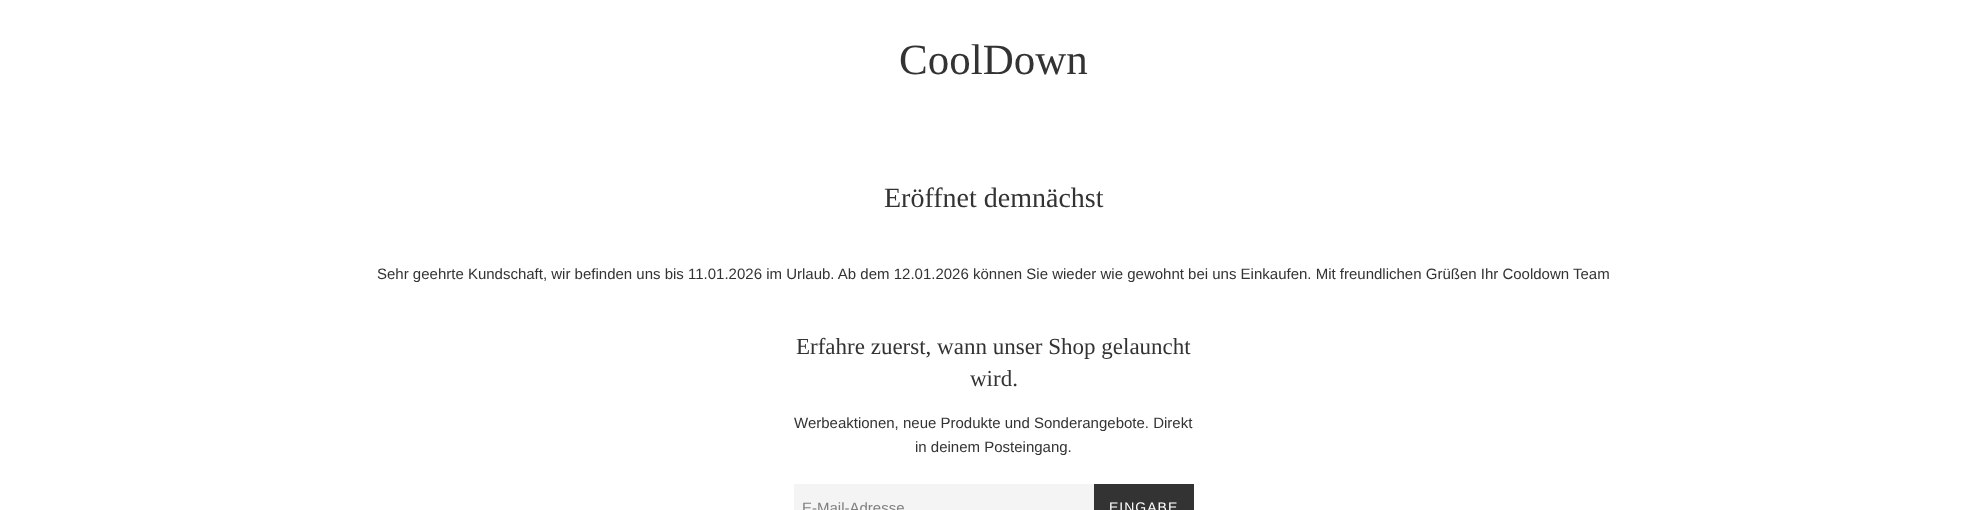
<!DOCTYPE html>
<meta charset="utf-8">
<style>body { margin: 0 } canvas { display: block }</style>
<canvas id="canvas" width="1987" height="510"></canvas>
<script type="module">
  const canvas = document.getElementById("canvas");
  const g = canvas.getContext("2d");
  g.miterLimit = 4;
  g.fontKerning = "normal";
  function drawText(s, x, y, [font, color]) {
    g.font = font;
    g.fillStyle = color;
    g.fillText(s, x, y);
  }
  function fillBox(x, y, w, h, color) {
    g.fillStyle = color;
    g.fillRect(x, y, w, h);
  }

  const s1 = ["43px Liberation Serif", "#333333"];
  const s2 = ["28px Liberation Serif", "#333333"];
  const s3 = ["15px Liberation Sans", "#333333"];
  const s4 = ["23px Liberation Serif", "#333333"];
  const s5 = ["15px Liberation Sans", "#808080"];
  const s6 = ["14px Liberation Sans", "#FFFFFF"];

  fillBox(0, 0, 1987, 510, "#FFFFFF");
  drawText("CoolDown", 899, 74, s1);
  drawText("Eröffnet demnächst", 884, 207, s2);
  drawText("Sehr geehrte Kundschaft, wir befinden uns bis 11.01.2026 im Urlaub. Ab dem 12.01.2026 können Sie wieder wie gewohnt bei uns Einkaufen. Mit freundlichen Grüßen Ihr Cooldown Team", 377, 279, s3);
  drawText("Erfahre zuerst, wann unser Shop gelauncht", 796, 354, s4);
  drawText("wird.", 970, 386, s4);
  drawText("Werbeaktionen, neue Produkte und Sonderangebote. Direkt", 794, 428, s3);
  drawText("in deinem Posteingang.", 915, 452, s3);
  fillBox(794, 484, 300, 26, "#F4F4F4");
  drawText("E-Mail-Adresse", 802, 513, s5);
  fillBox(1094, 484, 100, 26, "#333333");
  g.letterSpacing = "1px";
  drawText("EINGABE", 1109, 512, s6);
</script>
